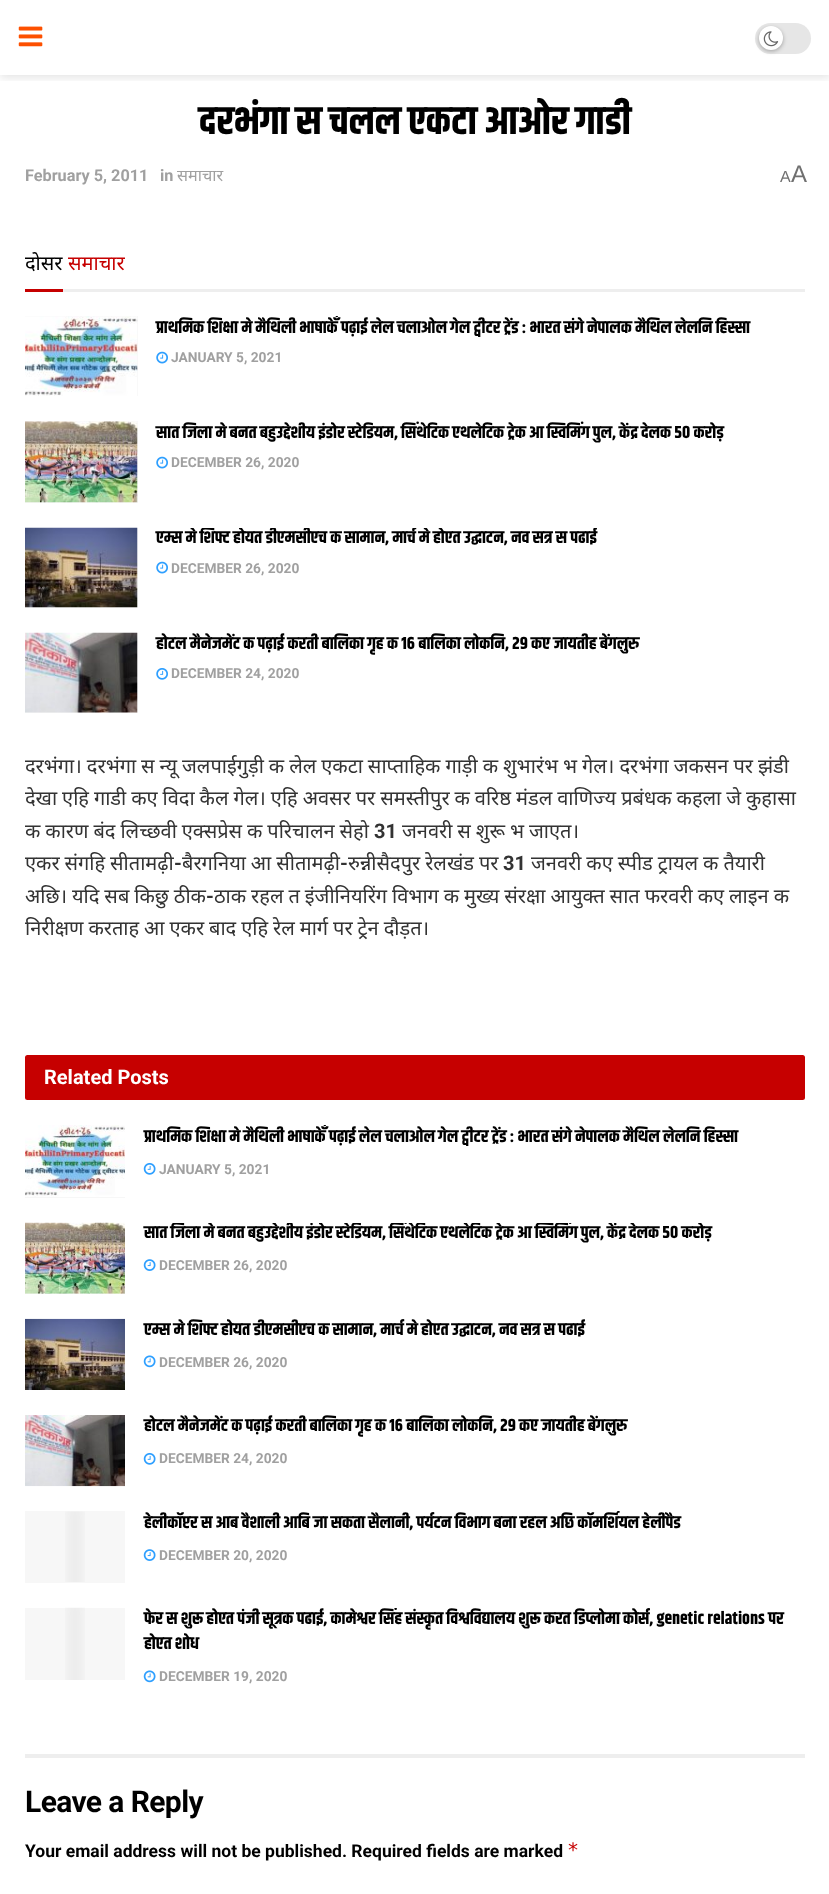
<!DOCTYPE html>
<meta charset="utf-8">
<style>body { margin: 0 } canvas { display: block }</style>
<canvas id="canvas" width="829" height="1894"></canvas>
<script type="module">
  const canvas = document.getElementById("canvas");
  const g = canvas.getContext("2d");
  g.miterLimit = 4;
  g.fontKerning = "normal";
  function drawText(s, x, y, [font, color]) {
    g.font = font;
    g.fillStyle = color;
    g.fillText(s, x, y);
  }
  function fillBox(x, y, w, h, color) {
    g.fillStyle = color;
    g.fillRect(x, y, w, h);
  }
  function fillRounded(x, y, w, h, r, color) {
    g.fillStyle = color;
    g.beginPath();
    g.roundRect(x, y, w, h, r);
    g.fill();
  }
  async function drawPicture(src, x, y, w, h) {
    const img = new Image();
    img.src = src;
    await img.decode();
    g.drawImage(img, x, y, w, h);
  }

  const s1 = ["bold 40px Khand", "#000000"];
  const s2 = ["bold 16.25px Roboto", "#A0A0A0"];
  const s3 = ["16.25px Noto Sans", "#A0A0A0"];
  const s4 = ["16px Liberation Sans", "#707070"];
  const s5 = ["24px Liberation Sans", "#707070"];
  const s6 = ["20px Noto Sans", "#000000"];
  const s7 = ["20px Noto Sans", "#C60000"];
  const s8 = ["bold 17.5px Khand", "#000000"];
  const s9 = ["bold 13.75px Roboto", "#A0A0A0"];
  const s10 = ["20px Noto Sans", "#333333"];
  const s11 = ["bold 20px Roboto", "#333333"];
  const s12 = ["bold 20px Roboto", "#FFFFFF"];
  const s13 = ["bold 30px Roboto", "#000000"];
  const s14 = ["bold 17.5px Roboto", "#000000"];
  const s15 = ["20px DejaVu Sans Mono", "#C60000"];

  fillBox(0, 0, 829, 1894, "#FFFFFF");
  g.save();
  g.beginPath();
  g.rect(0, 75, 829, 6);
  g.clip();
  g.fillStyle = "rgba(0, 0, 0, 0.1)";
  g.filter = "blur(4px)";
  g.beginPath();
  g.rect(0, 3, 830, 75);
  g.fill();
  g.filter = "none";
  g.restore();
  await drawPicture("pic1.png", 18, 26, 25, 21);
  fillRounded(755, 23, 56, 31, 15.5, "#E6E6E6");
  g.fillStyle = "rgba(0, 0, 0, 0.3)";
  g.filter = "blur(2px)";
  g.beginPath();
  g.roundRect(759, 28, 24, 23, 11.5);
  g.fill();
  g.filter = "none";
  g.fillStyle = "#FFFFFF";
  g.beginPath();
  g.arc(771, 38, 12, 0, Math.PI * 2);
  g.fill();
  await drawPicture("pic2.png", 763, 31, 16, 16);
  drawText("दरभंगा स चलल एकटा आओर गाडी", 199, 134, s1);
  drawText("February 5, 2011", 25, 181, s2);
  drawText("in", 160, 181, s2);
  drawText("समाचार", 177, 181, s3);
  drawText("A", 780, 182, s4);
  drawText("A", 791, 182, s5);
  fillBox(63, 289, 742, 3, "#EEEEEE");
  drawText("दोसर", 25, 270, s6);
  drawText("समाचार", 68, 270, s7);
  fillBox(25, 289, 38, 3, "#C60000");
  fillBox(25, 316, 113, 80, "#F7F7F7");
  await drawPicture("pic3.png", 25, 316, 113, 80);
  g.save();
  g.beginPath();
  g.rect(25, 316, 780, 80);
  g.clip();
  drawText("प्राथमिक शि‍क्षा मे मैथि‍ली भाषाकेँ पढ़ाई लेल चलाओल गेल ट्वीटर ट्रेंड : भारत संगे नेपालक मैथिल लेलनि हिस्सा", 156, 333, s8);
  g.restore();
  await drawPicture("pic4.png", 156, 351, 12, 13);
  drawText("JANUARY 5, 2021", 171, 362, s9);
  fillBox(25, 421, 113, 82, "#F7F7F7");
  await drawPicture("pic5.png", 25, 421, 113, 82);
  drawText("सात जिला मे बनत बहुउद्देशीय इंडोर स्‍टेडि‍यम, सिंथेटिक एथलेटिक ट्रेक आ स्विमिंग पुल, केंद्र देलक 50 करोड़", 156, 438, s8);
  await drawPicture("pic4.png", 156, 456, 12, 13);
  drawText("DECEMBER 26, 2020", 171, 467, s9);
  fillBox(25, 528, 113, 80, "#F7F7F7");
  await drawPicture("pic6.png", 25, 527, 113, 81);
  g.save();
  g.beginPath();
  g.rect(25, 528, 780, 80);
  g.clip();
  drawText("एम्स मे शिफ्ट होयत डीएमसीएच क सामान, मार्च मे होएत उद्घाटन, नव सत्र स पढाई", 156, 543, s8);
  g.restore();
  await drawPicture("pic4.png", 156, 561, 12, 13);
  drawText("DECEMBER 26, 2020", 171, 573, s9);
  fillBox(25, 633, 113, 80, "#F7F7F7");
  await drawPicture("pic7.png", 25, 632, 113, 81);
  drawText("होटल मैनेजमेंट क पढ़ाई करती बालिका गृह क 16 बालिका लोकनि, 29 कए जायतीह बेंगलुरु", 156, 649, s8);
  await drawPicture("pic8.png", 156, 668, 12, 12);
  drawText("DECEMBER 24, 2020", 171, 678, s9);
  g.wordSpacing = "-0.25px";
  drawText("दरभंगा। दरभंगा स न्यू जलपाईगुड़ी क लेल एकटा साप्ताहिक गाड़ी क शुभारंभ भ गेल। दरभंगा जकसन पर झंडी", 25, 773, s10);
  drawText("देखा एहि गाडी कए विदा कैल गेल। एहि अवसर पर समस्तीपुर क वरिष्ठ मंडल वाणिज्य प्रबंधक कहला जे कुहासा", 25, 805, s10);
  drawText("क कारण बंद लिच्छवी एक्सप्रेस क परिचालन सेहो", 25, 838, s10);
  g.wordSpacing = "0px";
  drawText("31", 374, 838, s11);
  g.wordSpacing = "-0.25px";
  drawText("जनवरी स शुरू भ जाएत।", 402, 838, s10);
  drawText("एकर संगहि सीतामढ़ी", 25, 870, s10);
  g.wordSpacing = "0px";
  drawText("-", 174, 870, s11);
  g.wordSpacing = "-0.25px";
  drawText("बैरगनिया आ सीतामढ़ी", 182, 870, s10);
  drawText("रुन्नीसैदपुर रेलखंड पर", 348, 870, s10);
  g.wordSpacing = "0px";
  drawText("31", 503, 870, s11);
  g.wordSpacing = "-0.25px";
  drawText("जनवरी कए स्पीड ट्रायल क तैयारी", 531, 870, s10);
  g.wordSpacing = "0px";
  drawText("-", 340, 870, s11);
  g.wordSpacing = "-0.25px";
  drawText("अछि। यदि सब किछु ठीक", 25, 903, s10);
  g.wordSpacing = "0px";
  drawText("-", 206, 903, s11);
  g.wordSpacing = "-0.25px";
  drawText("ठाक रहल त इंजीनियरिंग विभाग क मुख्य संरक्षा आयुक्त सात फरवरी कए लाइन क", 214, 903, s10);
  drawText("निरीक्षण करताह आ एकर बाद एहि रेल मार्ग पर ट्रेन दौड़त।", 25, 935, s10);
  fillRounded(25, 1055, 780, 45, 2.5, "#C60000");
  g.wordSpacing = "0px";
  drawText("Related Posts", 44, 1084, s12);
  fillBox(25, 1197, 100, 1, "#F7F7F7");
  await drawPicture("pic9.png", 25, 1125, 100, 72);
  g.save();
  g.beginPath();
  g.rect(25, 1125, 780, 73);
  g.clip();
  drawText("प्राथमिक शि‍क्षा मे मैथि‍ली भाषाकेँ पढ़ाई लेल चलाओल गेल ट्वीटर ट्रेंड : भारत संगे नेपालक मैथिल लेलनि हिस्सा", 144, 1142, s8);
  g.restore();
  await drawPicture("pic10.png", 143, 1162, 13, 13);
  drawText("JANUARY 5, 2021", 159, 1174, s9);
  fillBox(25, 1293, 100, 1, "#F7F7F7");
  await drawPicture("pic11.png", 25, 1222, 100, 72);
  g.save();
  g.beginPath();
  g.rect(25, 1223, 780, 71);
  g.clip();
  drawText("सात जिला मे बनत बहुउद्देशीय इंडोर स्‍टेडि‍यम, सिंथेटिक एथलेटिक ट्रेक आ स्विमिंग पुल, केंद्र देलक 50 करोड़", 144, 1238, s8);
  g.restore();
  await drawPicture("pic12.png", 143, 1259, 13, 12);
  drawText("DECEMBER 26, 2020", 159, 1270, s9);
  await drawPicture("pic13.png", 25, 1318, 100, 72);
  drawText("एम्स मे शिफ्ट होयत डीएमसीएच क सामान, मार्च मे होएत उद्घाटन, नव सत्र स पढाई", 144, 1335, s8);
  await drawPicture("pic14.png", 143, 1355, 13, 13);
  drawText("DECEMBER 26, 2020", 159, 1367, s9);
  await drawPicture("pic15.png", 25, 1415, 100, 72);
  drawText("होटल मैनेजमेंट क पढ़ाई करती बालिका गृह क 16 बालिका लोकनि, 29 कए जायतीह बेंगलुरु", 144, 1431, s8);
  await drawPicture("pic10.png", 143, 1452, 13, 13);
  drawText("DECEMBER 24, 2020", 159, 1463, s9);
  fillBox(25, 1511, 100, 72, "#F7F7F7");
  await drawPicture("pic16.png", 65, 1511, 20, 71);
  g.save();
  g.beginPath();
  g.rect(25, 1511, 780, 72);
  g.clip();
  drawText("हेलीकॉप्टर स आब वैशाली आबि जा सकता सैलानी, पर्यटन विभाग बना रहल अछि कॉमर्शियल हेलीपैड", 144, 1528, s8);
  g.restore();
  await drawPicture("pic12.png", 143, 1549, 13, 12);
  drawText("DECEMBER 20, 2020", 159, 1560, s9);
  fillBox(25, 1608, 100, 72, "#F7F7F7");
  await drawPicture("pic17.png", 65, 1607, 20, 73);
  g.save();
  g.beginPath();
  g.rect(25, 1608, 780, 83);
  g.clip();
  drawText("फेर स शुरू होएत पंजी सूत्रक पढाई, कामेश्वर सिंह संस्कृत विश्वविद्यालय शुरू करत डिप्लोमा कोर्स, genetic relations पर", 144, 1624, s8);
  g.restore();
  drawText("होएत शोध", 144, 1649, s8);
  await drawPicture("pic14.png", 143, 1670, 13, 13);
  drawText("DECEMBER 19, 2020", 159, 1681, s9);
  fillBox(25, 1754, 780, 4, "#EEEEEE");
  g.letterSpacing = "-0.6px";
  drawText("Leave a Reply", 25, 1812, s13);
  g.letterSpacing = "0px";
  drawText("Your email address will not be published. Required fields are marked", 25, 1857, s14);
  drawText("*", 567, 1857, s15);
</script>
